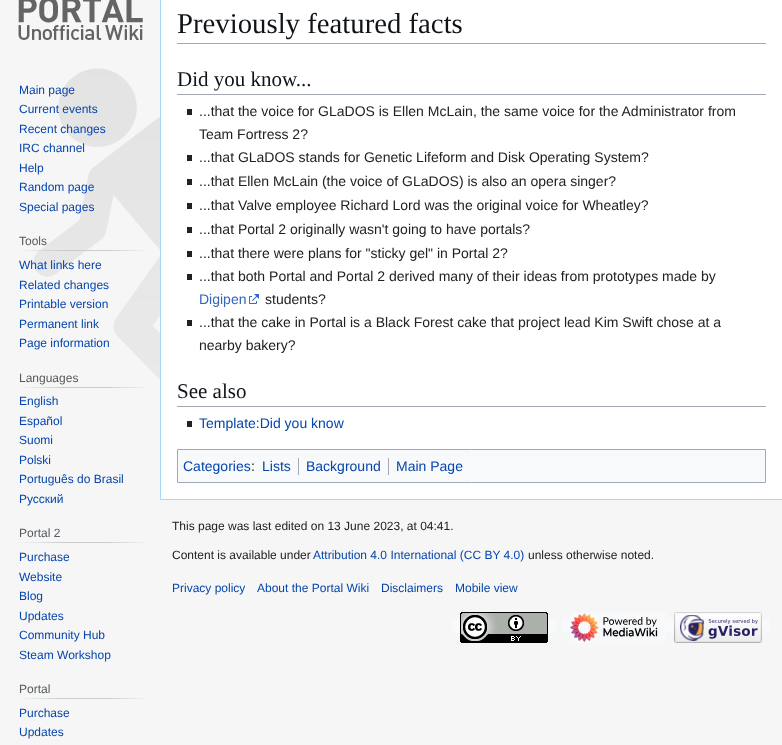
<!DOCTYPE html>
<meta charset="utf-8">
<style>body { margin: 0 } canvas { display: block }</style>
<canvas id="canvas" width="782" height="745"></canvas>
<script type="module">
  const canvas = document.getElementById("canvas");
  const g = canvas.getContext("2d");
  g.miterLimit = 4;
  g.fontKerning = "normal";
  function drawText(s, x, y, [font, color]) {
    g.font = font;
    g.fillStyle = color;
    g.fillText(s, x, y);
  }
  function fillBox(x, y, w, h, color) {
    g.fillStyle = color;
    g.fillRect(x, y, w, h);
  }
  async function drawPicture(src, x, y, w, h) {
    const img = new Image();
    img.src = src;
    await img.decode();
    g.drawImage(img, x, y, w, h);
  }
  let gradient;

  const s1 = ["12px Liberation Sans", "#0645AD"];
  const s2 = ["12px Liberation Sans", "#54595D"];
  const s3 = ["28.75px Liberation Serif", "#101418"];
  const s4 = ["21px Liberation Serif", "#101418"];
  const s5 = ["14px Liberation Sans", "#202122"];
  const s6 = ["14px Liberation Sans", "#3366BB"];
  const s7 = ["14px Liberation Sans", "#0645AD"];
  const s8 = ["12px Liberation Sans", "#202122"];

  fillBox(0, 0, 782, 745, "#F6F6F6");
  await drawPicture("pic1.png", 18, 0, 125, 40);
  await drawPicture("pic2.png", 33, 68, 127, 312);
  drawText("Main page", 19, 94, s1);
  drawText("Current events", 19, 113, s1);
  drawText("Recent changes", 19, 133, s1);
  drawText("IRC channel", 19, 152, s1);
  drawText("Help", 19, 172, s1);
  drawText("Random page", 19, 191, s1);
  drawText("Special pages", 19, 211, s1);
  gradient = g.createLinearGradient(19, 251, 150, 251);
  gradient.addColorStop(0, "rgba(200, 204, 209, 0)");
  gradient.addColorStop(0.33, "#C8CCD1");
  gradient.addColorStop(0.66, "#C8CCD1");
  gradient.addColorStop(1, "rgba(200, 204, 209, 0)");
  g.fillStyle = gradient;
  g.fillRect(19, 250, 131, 1);
  drawText("Tools", 19, 245, s2);
  drawText("What links here", 19, 269, s1);
  drawText("Related changes", 19, 289, s1);
  drawText("Printable version", 19, 308, s1);
  drawText("Permanent link", 19, 328, s1);
  drawText("Page information", 19, 347, s1);
  gradient = g.createLinearGradient(19, 388, 150, 388);
  gradient.addColorStop(0, "#F6F6F6");
  gradient.addColorStop(0.33, "#C8CCD1");
  gradient.addColorStop(0.66, "#C8CCD1");
  gradient.addColorStop(1, "#F6F6F6");
  g.fillStyle = gradient;
  g.fillRect(19, 387, 131, 1);
  drawText("Languages", 19, 382, s2);
  drawText("English", 19, 405, s1);
  drawText("Español", 19, 425, s1);
  drawText("Suomi", 19, 444, s1);
  drawText("Polski", 19, 464, s1);
  drawText("Português do Brasil", 19, 483, s1);
  drawText("Русский", 19, 503, s1);
  gradient = g.createLinearGradient(19, 543, 150, 543);
  gradient.addColorStop(0, "#F6F6F6");
  gradient.addColorStop(0.33, "#C8CCD1");
  gradient.addColorStop(0.66, "#C8CCD1");
  gradient.addColorStop(1, "#F6F6F6");
  g.fillStyle = gradient;
  g.fillRect(19, 542, 131, 1);
  drawText("Portal 2", 19, 537, s2);
  drawText("Purchase", 19, 561, s1);
  drawText("Website", 19, 581, s1);
  drawText("Blog", 19, 600, s1);
  drawText("Updates", 19, 620, s1);
  drawText("Community Hub", 19, 639, s1);
  drawText("Steam Workshop", 19, 659, s1);
  gradient = g.createLinearGradient(19, 699, 150, 699);
  gradient.addColorStop(0, "#F6F6F6");
  gradient.addColorStop(0.33, "#C8CCD1");
  gradient.addColorStop(0.66, "#C8CCD1");
  gradient.addColorStop(1, "#F6F6F6");
  g.fillStyle = gradient;
  g.fillRect(19, 698, 131, 1);
  drawText("Portal", 19, 693, s2);
  drawText("Purchase", 19, 717, s1);
  drawText("Updates", 19, 736, s1);
  fillBox(161, 0, 621, 499, "#FFFFFF");
  fillBox(160, 499, 622, 1, "#A7D7F9");
  fillBox(160, 0, 1, 500, "#A7D7F9");
  fillBox(177, 43, 589, 1, "#A2A9B1");
  drawText("Previously featured facts", 177, 33, s3);
  fillBox(177, 94, 589, 1, "#A2A9B1");
  drawText("Did you know...", 177, 86, s4);
  fillBox(187, 109, 5, 6, "#202122");
  drawText("...that the voice for GLaDOS is Ellen McLain, the same voice for the Administrator from", 199, 116, s5);
  drawText("Team Fortress 2?", 199, 139, s5);
  fillBox(187, 155, 5, 6, "#202122");
  drawText("...that GLaDOS stands for Genetic Lifeform and Disk Operating System?", 199, 162, s5);
  fillBox(187, 179, 5, 6, "#202122");
  drawText("...that Ellen McLain (the voice of GLaDOS) is also an opera singer?", 199, 186, s5);
  fillBox(187, 203, 5, 6, "#202122");
  drawText("...that Valve employee Richard Lord was the original voice for Wheatley?", 199, 210, s5);
  fillBox(187, 227, 5, 6, "#202122");
  drawText("...that Portal 2 originally wasn't going to have portals?", 199, 234, s5);
  fillBox(187, 251, 5, 6, "#202122");
  drawText("...that there were plans for \"sticky gel\" in Portal 2?", 199, 258, s5);
  fillBox(187, 274, 5, 6, "#202122");
  drawText("...that both Portal and Portal 2 derived many of their ideas from prototypes made by", 199, 281, s5);
  drawText("Digipen", 199, 304, s6);
  await drawPicture("pic3.png", 249, 294, 10, 10);
  drawText("students?", 265, 304, s5);
  fillBox(187, 320, 5, 6, "#202122");
  drawText("...that the cake in Portal is a Black Forest cake that project lead Kim Swift chose at a", 199, 327, s5);
  drawText("nearby bakery?", 199, 350, s5);
  fillBox(177, 406, 589, 1, "#A2A9B1");
  drawText("See also", 177, 398, s4);
  fillBox(187, 421, 5, 6, "#202122");
  drawText("Template:Did you know", 199, 428, s7);
  g.fillStyle = "#F8F9FA";
  g.beginPath();
  g.rect(177.5, 449.5, 588, 33);
  g.fill();
  g.strokeStyle = "#A2A9B1";
  g.stroke();
  drawText("Categories", 183, 471, s7);
  drawText(":", 251, 471, s5);
  drawText("Lists", 262, 471, s7);
  fillBox(298, 458, 1, 17, "#A2A9B1");
  drawText("Background", 306, 471, s7);
  fillBox(388, 458, 1, 17, "#A2A9B1");
  drawText("Main Page", 396, 471, s7);
  drawText("This page was last edited on 13 June 2023, at 04:41.", 172, 530, s8);
  drawText("Content is available under", 172, 559, s8);
  drawText("Attribution 4.0 International (CC BY 4.0)", 313, 559, s1);
  drawText("unless otherwise noted.", 528, 559, s8);
  drawText("Privacy policy", 172, 592, s1);
  drawText("About the Portal Wiki", 257, 592, s1);
  drawText("Disclaimers", 381, 592, s1);
  drawText("Mobile view", 455, 592, s1);
  fillBox(452, 619, 104, 14, "#F8F9FA");
  await drawPicture("pic4.png", 460, 612, 88, 31);
  fillBox(570, 612, 96, 31, "#F8F9FA");
  fillBox(666, 619, 104, 14, "#F8F9FA");
  await drawPicture("pic5.png", 674, 612, 88, 31);
  fillBox(562, 619, 8, 14, "#F8F9FA");
  await drawPicture("pic6.png", 570, 613, 88, 29);
</script>
